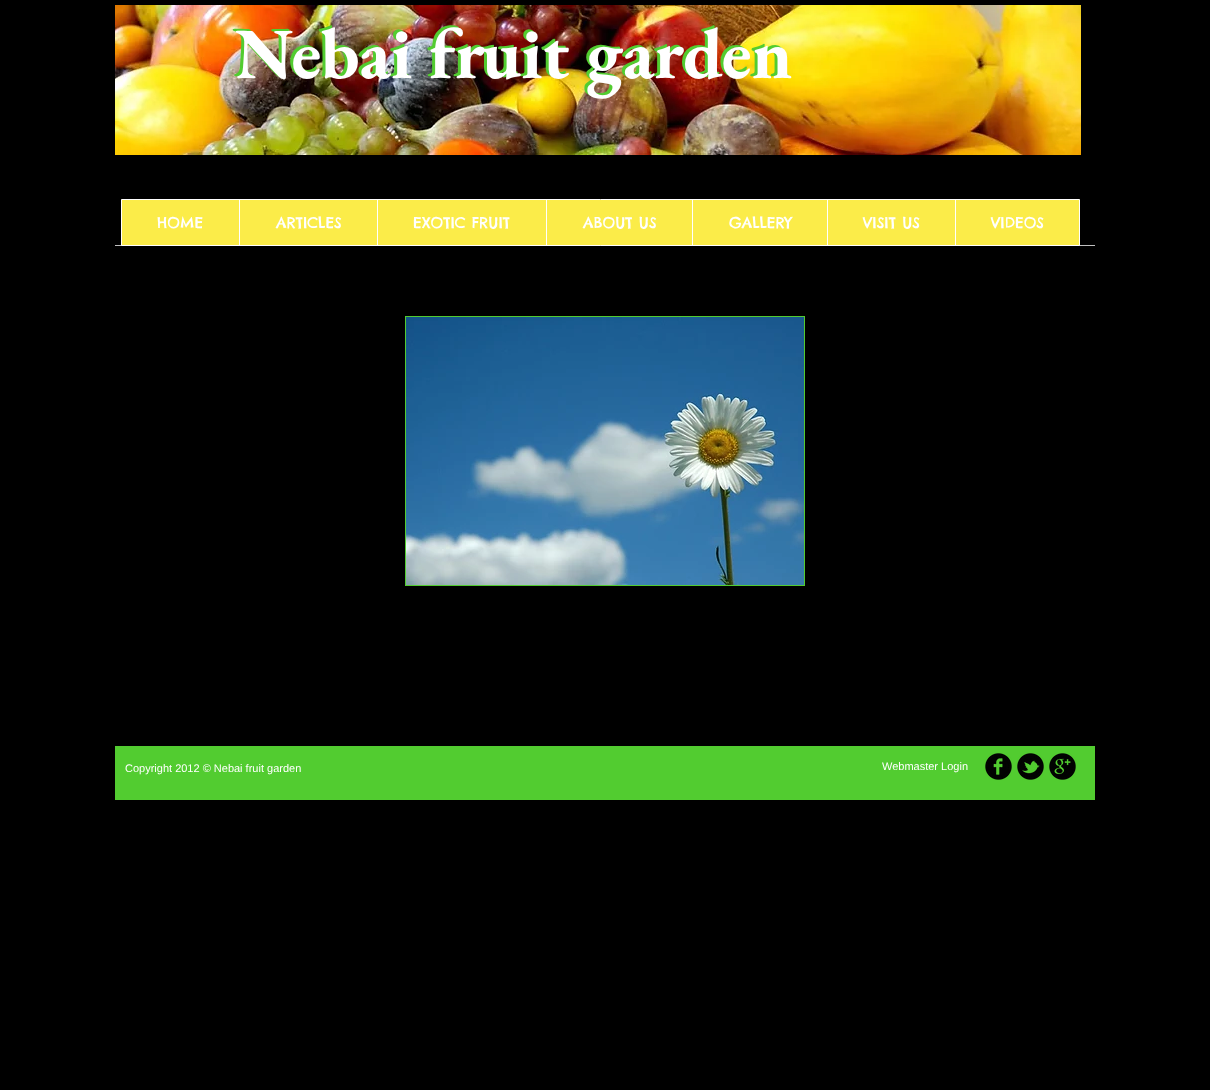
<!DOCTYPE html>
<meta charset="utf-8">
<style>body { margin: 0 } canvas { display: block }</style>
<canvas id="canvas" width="1210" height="1090"></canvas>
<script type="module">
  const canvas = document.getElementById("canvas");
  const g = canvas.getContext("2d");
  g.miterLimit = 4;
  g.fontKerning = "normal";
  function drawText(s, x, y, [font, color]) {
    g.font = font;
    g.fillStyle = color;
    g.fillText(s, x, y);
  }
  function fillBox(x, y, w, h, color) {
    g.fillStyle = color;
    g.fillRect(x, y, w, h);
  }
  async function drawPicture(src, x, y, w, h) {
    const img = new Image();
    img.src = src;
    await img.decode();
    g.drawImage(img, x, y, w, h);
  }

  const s1 = ["bold 72px EB Garamond", "#52CC30"];
  const s2 = ["bold 72px EB Garamond", "#FFFFFF"];
  const s3 = ["15px Chelsea Market", "#FFFFFF"];
  const s4 = ["11px Liberation Sans", "#FFFFFF"];

  fillBox(0, 0, 1210, 1090, "#000000");
  await drawPicture("pic1.png", 115, 5, 966, 150);
  drawText("Nebai fruit garden", 232, 76, s1);
  drawText("Nebai fruit garden", 235, 78, s2);
  fillBox(115, 245, 980, 1, "#BFBFBF");
  g.fillStyle = "#FBEC49";
  g.beginPath();
  g.rect(121.5, 199.5, 958, 46);
  g.fill();
  g.strokeStyle = "#FFFFFF";
  g.stroke();
  drawText("HOME", 157, 228, s3);
  fillBox(239, 200, 1, 45, "#FFFFFF");
  drawText("ARTICLES", 276, 228, s3);
  fillBox(377, 200, 1, 45, "#FFFFFF");
  drawText("EXOTIC FRUIT", 413, 228, s3);
  fillBox(546, 200, 1, 45, "#FFFFFF");
  drawText("ABOUT US", 583, 228, s3);
  fillBox(692, 200, 1, 45, "#FFFFFF");
  drawText("GALLERY", 729, 228, s3);
  fillBox(827, 200, 1, 45, "#FFFFFF");
  drawText("VISIT US", 863, 228, s3);
  fillBox(955, 200, 1, 45, "#FFFFFF");
  drawText("VIDEOS", 991, 228, s3);
  fillBox(405, 316, 400, 270, "#52CC30");
  await drawPicture("pic2.png", 406, 317, 398, 268);
  fillBox(115, 746, 980, 54, "#52CC30");
  drawText("Copyright 2012 © Nebai fruit garden", 125, 772, s4);
  drawText("Webmaster Login", 882, 770, s4);
  await drawPicture("pic3.png", 985, 753, 27, 27);
  await drawPicture("pic4.png", 1017, 753, 27, 27);
  await drawPicture("pic5.png", 1049, 753, 27, 27);
</script>
